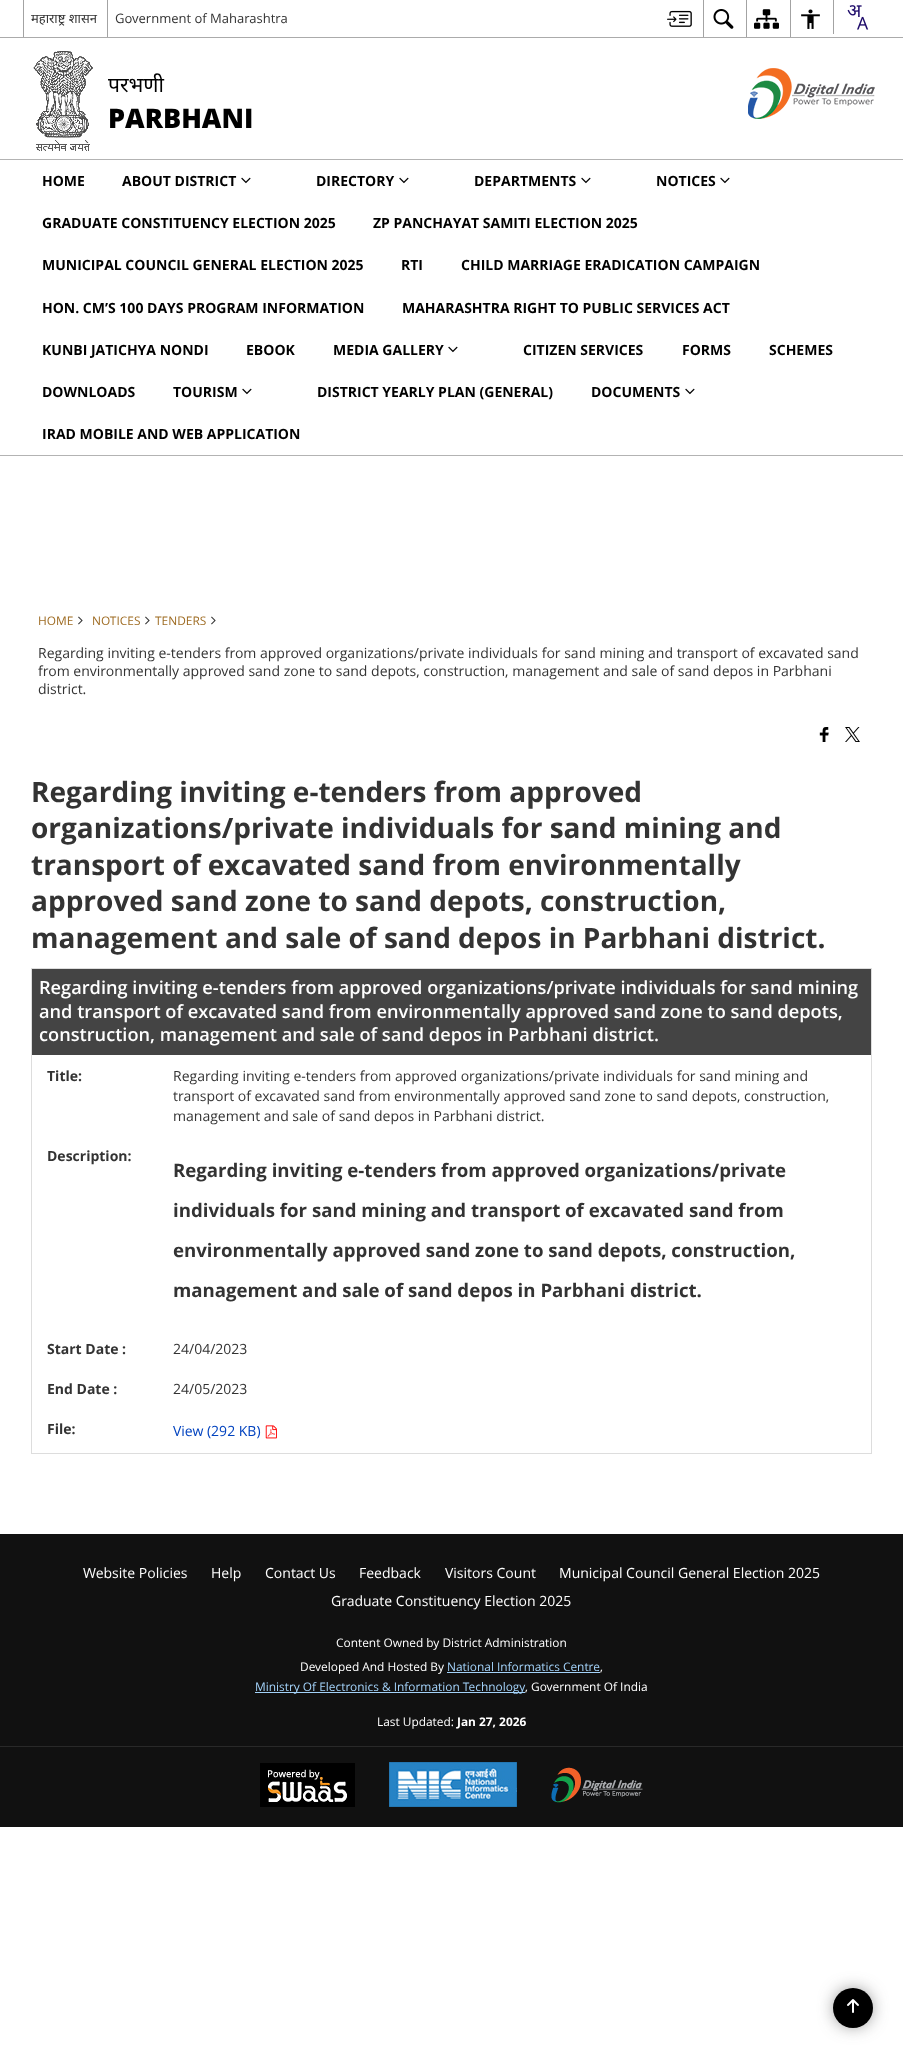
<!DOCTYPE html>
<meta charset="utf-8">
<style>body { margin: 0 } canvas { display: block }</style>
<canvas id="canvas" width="903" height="2058"></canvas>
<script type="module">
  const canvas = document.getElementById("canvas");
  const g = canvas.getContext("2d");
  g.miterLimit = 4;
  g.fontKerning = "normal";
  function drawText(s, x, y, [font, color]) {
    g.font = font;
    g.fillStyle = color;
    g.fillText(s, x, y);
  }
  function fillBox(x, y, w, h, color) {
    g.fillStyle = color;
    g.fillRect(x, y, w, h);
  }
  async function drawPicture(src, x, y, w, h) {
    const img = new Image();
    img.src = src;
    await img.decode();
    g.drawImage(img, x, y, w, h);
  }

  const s1 = ["13px Noto Sans", "#333333"];
  const s2 = ["13px Open Sans", "#333333"];
  const s3 = ["21px Noto Sans", "#000000"];
  const s4 = ["800 27px Open Sans", "#000000"];
  const s5 = ["bold 14px Open Sans", "#000000"];
  const s6 = ["11.9px Open Sans", "#9E6B22"];
  const s7 = ["14px Open Sans", "#333333"];
  const s8 = ["bold 28px Open Sans", "#333333"];
  const s9 = ["600 18.2px Open Sans", "#FFFFFF"];
  const s10 = ["bold 14px Open Sans", "#333333"];
  const s11 = ["bold 18.65px Open Sans", "#333333"];
  const s12 = ["14px Open Sans", "#0042BF"];
  const s13 = ["14px Open Sans", "#FFFFFF"];
  const s14 = ["11.9px Open Sans", "#FFFFFF"];
  const s15 = ["11.9px Open Sans", "#A3D2F9"];
  const s16 = ["bold 11.9px Open Sans", "#FFFFFF"];

  fillBox(0, 0, 903, 2058, "#FFFFFF");
  fillBox(0, 37, 903, 1, "#ABABAB");
  fillBox(23, 0, 1, 37, "#A3A3A3");
  drawText("महाराष्ट्र शासन", 31, 23, s1);
  fillBox(107, 0, 1, 37, "#A3A3A3");
  drawText("Government of Maharashtra", 115, 23, s2);
  await drawPicture("pic1.png", 667, 10, 25, 17);
  fillBox(703, 0, 1, 37, "#A3A3A3");
  await drawPicture("pic2.png", 713, 9, 21, 20);
  fillBox(746, 0, 1, 37, "#A3A3A3");
  await drawPicture("pic3.png", 754, 9, 25, 20);
  fillBox(790, 0, 1, 37, "#A3A3A3");
  await drawPicture("pic4.png", 801, 9, 19, 20);
  fillBox(833, 0, 1, 34, "#A3A3A3");
  await drawPicture("pic5.png", 847, 5, 22, 25);
  await drawPicture("pic6.png", 33, 51, 60, 100);
  drawText("परभणी", 108, 92, s3);
  drawText("PARBHANI", 108, 128, s4);
  await drawPicture("pic7.png", 748, 68, 127, 51);
  fillBox(0, 159, 903, 1, "#B3B3B3");
  fillBox(0, 455, 903, 1, "#B3B3B3");
  drawText("HOME", 42, 186, s5);
  drawText("ABOUT DISTRICT", 122, 186, s5);
  await drawPicture("pic8.png", 241, 177, 10, 7);
  drawText("DIRECTORY", 316, 186, s5);
  await drawPicture("pic8.png", 399, 177, 10, 7);
  drawText("DEPARTMENTS", 474, 186, s5);
  await drawPicture("pic8.png", 581, 177, 10, 7);
  drawText("NOTICES", 656, 186, s5);
  await drawPicture("pic8.png", 720, 177, 10, 7);
  drawText("GRADUATE CONSTITUENCY ELECTION 2025", 42, 228, s5);
  drawText("ZP PANCHAYAT SAMITI ELECTION 2025", 373, 228, s5);
  drawText("MUNICIPAL COUNCIL GENERAL ELECTION 2025", 42, 270, s5);
  drawText("RTI", 401, 270, s5);
  drawText("CHILD MARRIAGE ERADICATION CAMPAIGN", 461, 270, s5);
  drawText("HON. CM’S 100 DAYS PROGRAM INFORMATION", 42, 313, s5);
  drawText("MAHARASHTRA RIGHT TO PUBLIC SERVICES ACT", 402, 313, s5);
  drawText("KUNBI JATICHYA NONDI", 42, 355, s5);
  drawText("EBOOK", 246, 355, s5);
  drawText("MEDIA GALLERY", 333, 355, s5);
  await drawPicture("pic8.png", 448, 346, 10, 7);
  drawText("CITIZEN SERVICES", 523, 355, s5);
  drawText("FORMS", 682, 355, s5);
  drawText("SCHEMES", 769, 355, s5);
  drawText("DOWNLOADS", 42, 397, s5);
  drawText("TOURISM", 173, 397, s5);
  await drawPicture("pic8.png", 242, 388, 10, 7);
  drawText("DISTRICT YEARLY PLAN (GENERAL)", 317, 397, s5);
  drawText("DOCUMENTS", 591, 397, s5);
  await drawPicture("pic8.png", 685, 388, 10, 7);
  drawText("IRAD MOBILE AND WEB APPLICATION", 42, 439, s5);
  drawText("HOME", 38, 625, s6);
  await drawPicture("pic9.png", 78, 616, 5, 9);
  drawText("NOTICES", 92, 625, s6);
  await drawPicture("pic9.png", 145, 616, 5, 9);
  drawText("TENDERS", 155, 625, s6);
  await drawPicture("pic9.png", 211, 616, 5, 9);
  drawText("Regarding inviting e-tenders from approved organizations/private individuals for sand mining and transport of excavated sand", 38, 658, s7);
  drawText("from environmentally approved sand zone to sand depots, construction, management and sale of sand depos in Parbhani", 38, 676, s7);
  drawText("district.", 38, 694, s7);
  await drawPicture("pic10.png", 819, 727, 10, 15);
  await drawPicture("pic11.png", 845, 727, 15, 15);
  drawText("Regarding inviting e-tenders from approved", 31, 802, s8);
  drawText("organizations/private individuals for sand mining and", 31, 838, s8);
  drawText("transport of excavated sand from environmentally", 31, 875, s8);
  drawText("approved sand zone to sand depots, construction,", 31, 911, s8);
  drawText("management and sale of sand depos in Parbhani district.", 31, 948, s8);
  fillBox(31, 968, 841, 1, "#DDDDDD");
  fillBox(871, 968, 1, 486, "#DDDDDD");
  fillBox(31, 1453, 841, 1, "#DDDDDD");
  fillBox(31, 968, 1, 486, "#DDDDDD");
  fillBox(32, 969, 839, 86, "#444444");
  drawText("Regarding inviting e-tenders from approved organizations/private individuals for sand mining", 39, 994, s9);
  drawText("and transport of excavated sand from environmentally approved sand zone to sand depots,", 39, 1018, s9);
  drawText("construction, management and sale of sand depos in Parbhani district.", 39, 1041, s9);
  drawText("Title:", 47, 1081, s10);
  drawText("Regarding inviting e-tenders from approved organizations/private individuals for sand mining and", 173, 1081, s7);
  drawText("transport of excavated sand from environmentally approved sand zone to sand depots, construction,", 173, 1101, s7);
  drawText("management and sale of sand depos in Parbhani district.", 173, 1121, s7);
  drawText("Description:", 47, 1161, s10);
  drawText("Regarding inviting e-tenders from approved organizations/private", 173, 1177, s11);
  drawText("individuals for sand mining and transport of excavated sand from", 173, 1217, s11);
  drawText("environmentally approved sand zone to sand depots, construction,", 173, 1257, s11);
  drawText("management and sale of sand depos in Parbhani district.", 173, 1297, s11);
  drawText("Start Date :", 47, 1354, s10);
  drawText("24/04/2023", 173, 1354, s7);
  drawText("End Date :", 47, 1394, s10);
  drawText("24/05/2023", 173, 1394, s7);
  drawText("File:", 47, 1434, s10);
  drawText("View (292 KB)", 173, 1436, s12);
  await drawPicture("pic12.png", 265, 1425, 12, 14);
  fillBox(0, 1534, 903, 293, "#111111");
  drawText("Website Policies", 83, 1578, s13);
  drawText("Help", 211, 1578, s13);
  drawText("Contact Us", 265, 1578, s13);
  drawText("Feedback", 359, 1578, s13);
  drawText("Visitors Count", 445, 1578, s13);
  drawText("Municipal Council General Election 2025", 559, 1578, s13);
  drawText("Graduate Constituency Election 2025", 331, 1606, s13);
  drawText("Content Owned by District Administration", 336, 1647, s14);
  drawText("Developed And Hosted By", 300, 1671, s14);
  drawText("National Informatics Centre", 447, 1671, s15);
  fillBox(447, 1672, 153, 1, "#A3D2F9");
  drawText(",", 600, 1671, s14);
  fillBox(255, 1692, 270, 1, "#A3D2F9");
  drawText("Ministry Of Electronics & Information Technology", 255, 1691, s15);
  drawText(", Government Of India", 525, 1691, s14);
  drawText("Last Updated:", 377, 1726, s14);
  drawText("Jan 27, 2026", 457, 1726, s16);
  fillBox(0, 1746, 903, 1, "#292929");
  await drawPicture("pic13.png", 260, 1763, 95, 44);
  await drawPicture("pic14.png", 389, 1762, 128, 45);
  await drawPicture("pic15.png", 551, 1767, 92, 36);
  g.fillStyle = "#3C3C3C";
  g.filter = "blur(9.5px)";
  g.beginPath();
  g.roundRect(838, 1993, 30, 30, 15);
  g.fill();
  g.filter = "none";
  g.fillStyle = "#000000";
  g.beginPath();
  g.arc(853, 2008, 20, 0, Math.PI * 2);
  g.fill();
  await drawPicture("pic16.png", 847, 1999, 12, 14);
</script>
